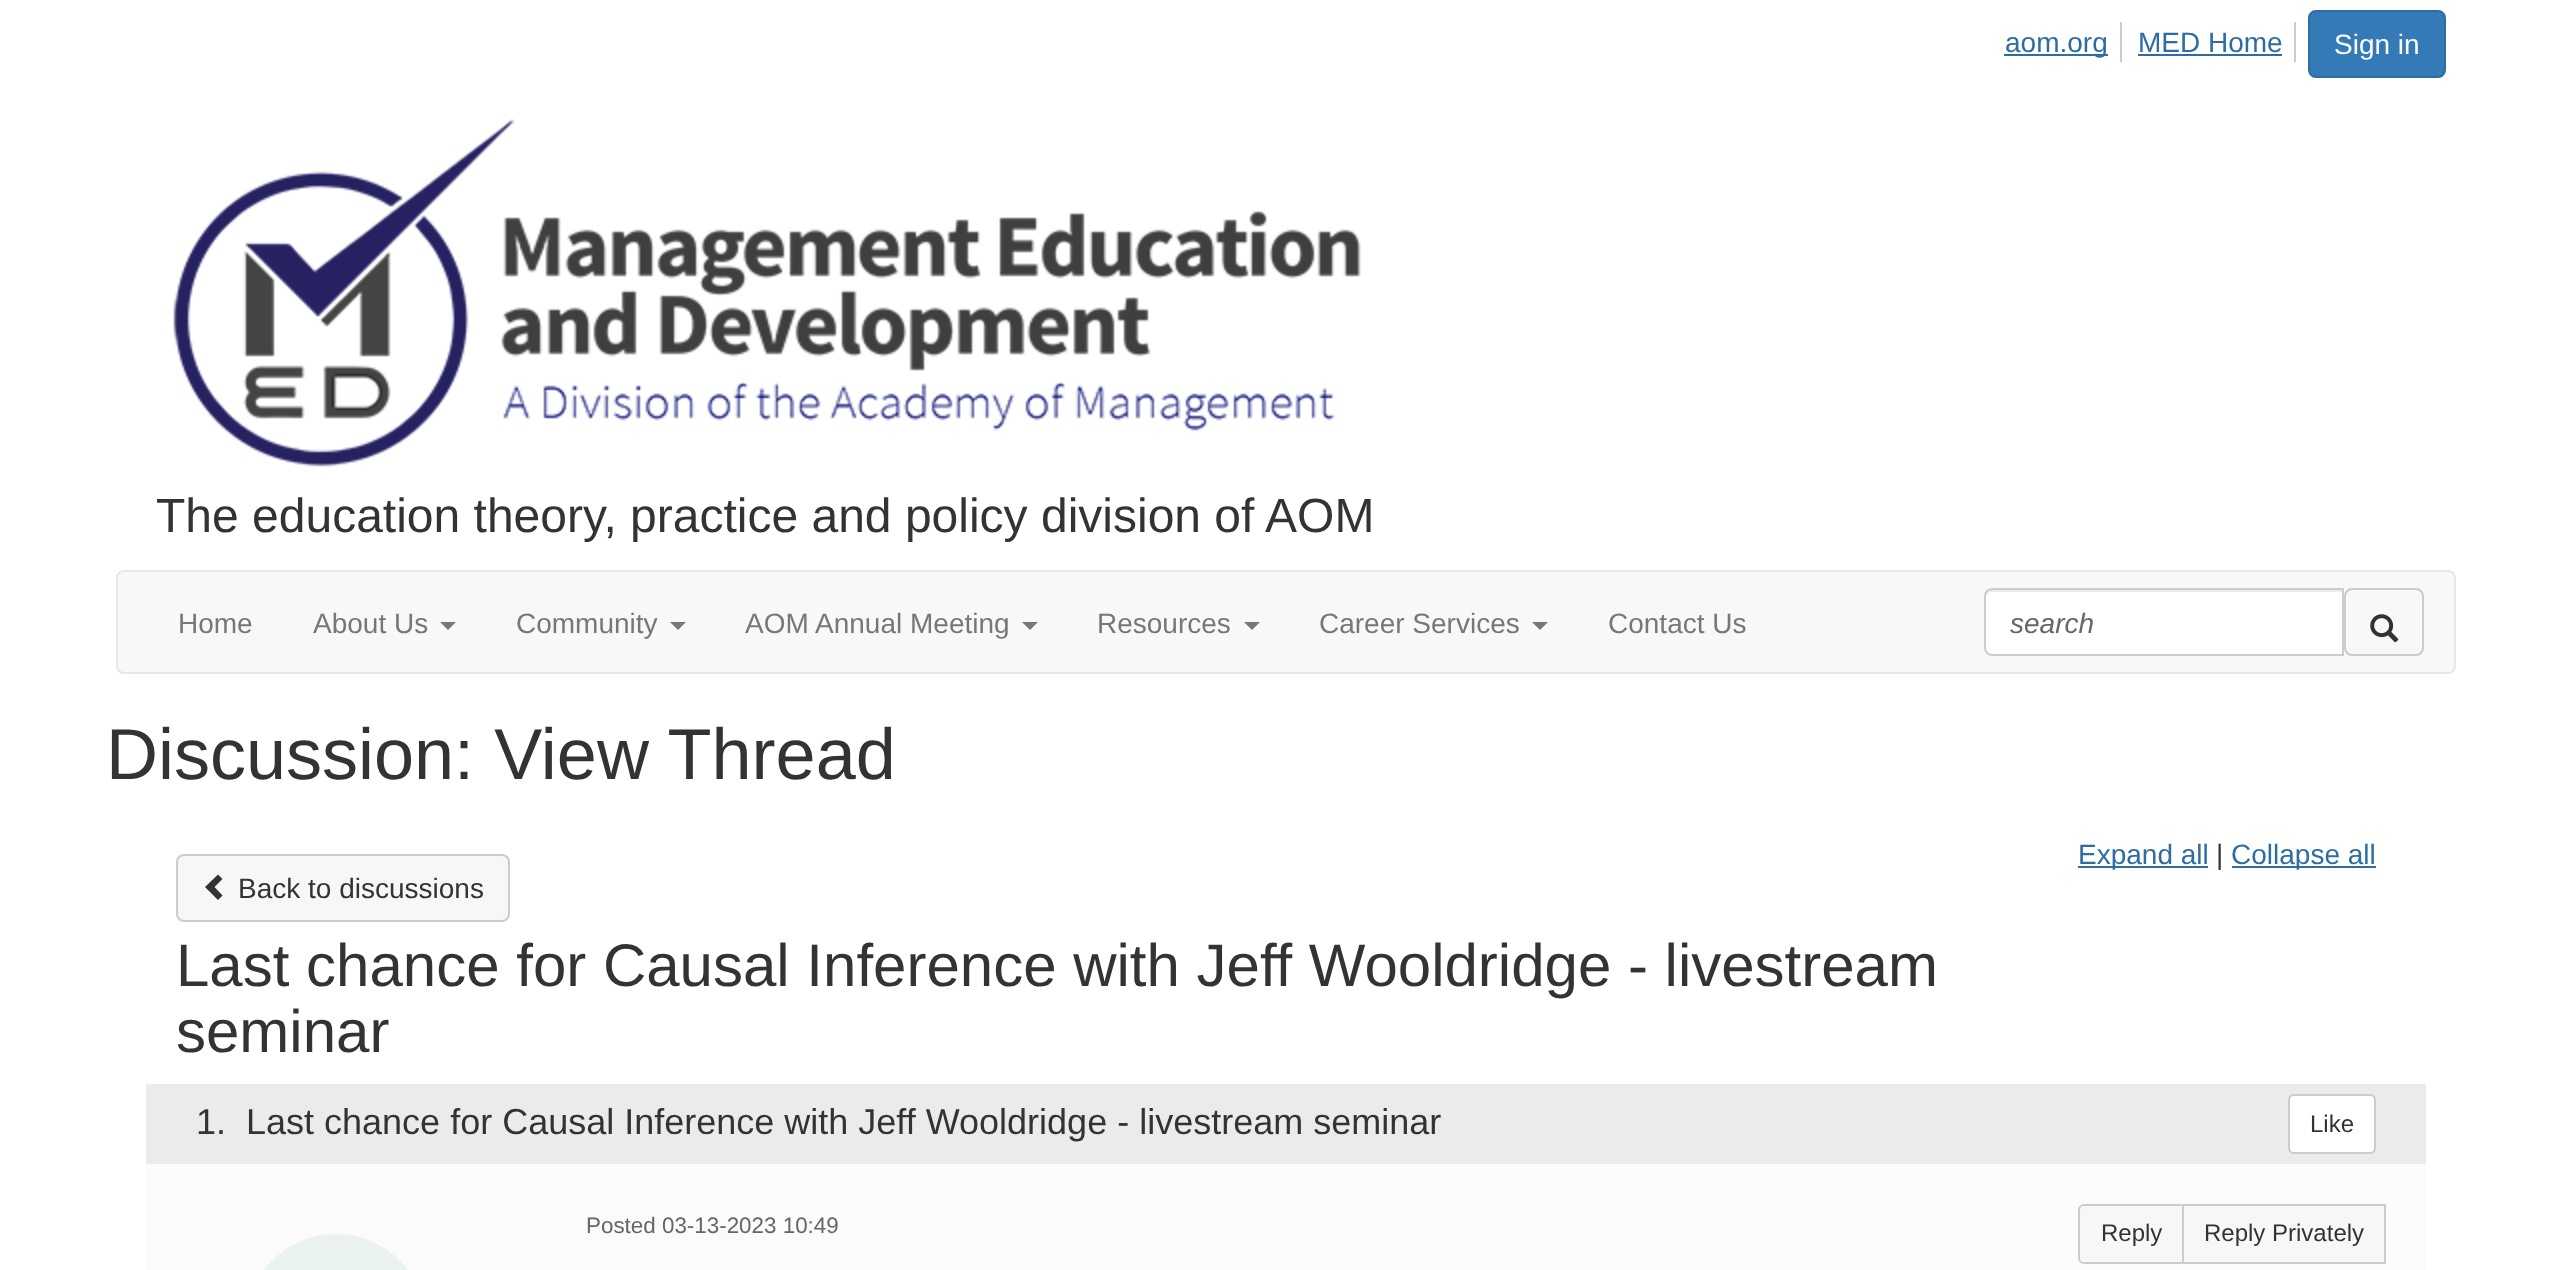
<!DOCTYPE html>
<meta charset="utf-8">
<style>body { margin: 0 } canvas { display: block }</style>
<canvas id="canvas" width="2572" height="1270"></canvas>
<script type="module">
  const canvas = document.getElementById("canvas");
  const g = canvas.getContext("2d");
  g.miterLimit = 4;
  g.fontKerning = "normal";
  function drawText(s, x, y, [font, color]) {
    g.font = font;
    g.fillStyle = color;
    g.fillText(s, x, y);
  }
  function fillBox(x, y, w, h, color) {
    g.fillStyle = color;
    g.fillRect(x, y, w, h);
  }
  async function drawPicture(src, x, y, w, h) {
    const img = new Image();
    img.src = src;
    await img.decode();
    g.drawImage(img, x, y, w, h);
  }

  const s1 = ["28px Liberation Sans", "#2E6DA4"];
  const s2 = ["28px Liberation Sans", "#FFFFFF"];
  const s3 = ["48px Liberation Sans", "#333333"];
  const s4 = ["28px Liberation Sans", "#777777"];
  const s5 = ["italic 28px Liberation Sans", "#666666"];
  const s6 = ["72px Liberation Sans", "#333333"];
  const s7 = ["28px Liberation Sans", "#333333"];
  const s8 = ["60px Liberation Sans", "#333333"];
  const s9 = ["36px Liberation Sans", "#333333"];
  const s10 = ["24px Liberation Sans", "#333333"];
  const s11 = ["22.4px Liberation Sans", "#666666"];

  fillBox(0, 0, 2572, 1270, "#FFFFFF");
  fillBox(2120, 22, 2, 40, "#CCCCCC");
  fillBox(2004, 54, 104, 2, "#2E6DA4");
  drawText("aom.org", 2005, 52, s1);
  fillBox(2294, 22, 2, 40, "#CCCCCC");
  drawText("MED Home", 2138, 52, s1);
  fillBox(2138, 54, 144, 2, "#2E6DA4");
  g.fillStyle = "#337AB7";
  g.beginPath();
  g.roundRect(2309, 11, 136, 66, 7);
  g.fill();
  g.strokeStyle = "#2E6DA4";
  g.lineWidth = 2;
  g.stroke();
  drawText("Sign in", 2334, 54, s2);
  await drawPicture("pic1.png", 173, 119, 1188, 348);
  drawText("The education theory, practice and policy division of AOM", 156, 532, s3);
  g.fillStyle = "#F8F8F8";
  g.beginPath();
  g.roundRect(117, 571, 2338, 102, 7);
  g.fill();
  g.strokeStyle = "#E7E7E7";
  g.stroke();
  drawText("Home", 178, 633, s4);
  drawText("About Us", 313, 633, s4);
  g.beginPath();
  g.moveTo(440, 622);
  g.lineTo(456, 622);
  g.lineTo(448, 630);
  g.closePath();
  g.fill();
  drawText("Community", 516, 633, s4);
  g.beginPath();
  g.moveTo(670, 622);
  g.lineTo(686, 622);
  g.lineTo(678, 630);
  g.closePath();
  g.fill();
  drawText("AOM Annual Meeting", 745, 633, s4);
  g.beginPath();
  g.moveTo(1022, 622);
  g.lineTo(1038, 622);
  g.lineTo(1030, 630);
  g.closePath();
  g.fill();
  drawText("Resources", 1097, 633, s4);
  g.beginPath();
  g.moveTo(1244, 622);
  g.lineTo(1260, 622);
  g.lineTo(1252, 630);
  g.closePath();
  g.fill();
  drawText("Career Services", 1319, 633, s4);
  g.beginPath();
  g.moveTo(1532, 622);
  g.lineTo(1548, 622);
  g.lineTo(1540, 630);
  g.closePath();
  g.fill();
  drawText("Contact Us", 1608, 633, s4);
  g.fillStyle = "#FFFFFF";
  g.beginPath();
  g.roundRect(1984, 588, 360, 68, [8, 0, 0, 8]);
  g.fill();
  g.fillStyle = "#ECECEC";
  g.beginPath();
  g.moveTo(1992, 592);
  g.lineTo(2342, 592);
  g.lineTo(2342, 590);
  g.lineTo(1992, 590);
  g.bezierCurveTo(1989, 590, 1986, 593, 1986, 596);
  g.lineTo(1986, 598);
  g.bezierCurveTo(1986, 595, 1989, 592, 1992, 592);
  g.closePath();
  g.fill();
  g.beginPath();
  g.roundRect(1985, 589, 358, 66, [7, 0, 0, 7]);
  g.strokeStyle = "#CCCCCC";
  g.stroke();
  drawText("search", 2010, 633, s5);
  g.beginPath();
  g.roundRect(2345, 589, 78, 66, 7);
  g.stroke();
  await drawPicture("pic2.png", 2370, 614, 29, 29);
  drawText("Discussion: View Thread", 106, 779, s6);
  fillBox(2078, 866, 130, 2, "#2E6DA4");
  drawText("Expand all", 2078, 864, s1);
  drawText("|", 2216, 864, s7);
  fillBox(2232, 866, 144, 2, "#2E6DA4");
  drawText("Collapse all", 2231, 864, s1);
  g.fillStyle = "#F7F7F7";
  g.beginPath();
  g.roundRect(177, 855, 332, 66, 7);
  g.fill();
  g.stroke();
  g.fillStyle = "#333333";
  g.beginPath();
  g.moveTo(222.5, 879);
  g.lineTo(214.5, 887);
  g.lineTo(222.5, 895.5);
  g.lineTo(218, 900);
  g.lineTo(205, 887);
  g.lineTo(218, 874.5);
  g.closePath();
  g.fill();
  drawText("Back to discussions", 238, 898, s7);
  drawText("Last chance for Causal Inference with Jeff Wooldridge - livestream", 176, 986, s8);
  drawText("seminar", 176, 1052, s8);
  fillBox(146, 1164, 2280, 106, "#FBFBFB");
  fillBox(146, 1084, 2280, 80, "#EBEBEB");
  drawText("1.", 196, 1134, s9);
  drawText("Last chance for Causal Inference with Jeff Wooldridge - livestream seminar", 246, 1134, s9);
  g.fillStyle = "#FFFFFF";
  g.beginPath();
  g.roundRect(2289, 1095, 86, 58, 5);
  g.fill();
  g.stroke();
  drawText("Like", 2310, 1132, s10);
  drawText("Posted 03-13-2023 10:49", 586, 1233, s11);
  g.fillStyle = "#F7F7F7";
  g.beginPath();
  g.roundRect(2079, 1205, 104, 58, [5, 0, 0, 5]);
  g.fill();
  g.stroke();
  drawText("Reply", 2101, 1241, s10);
  g.fillStyle = "#F7F7F7";
  g.beginPath();
  g.rect(2183, 1205, 202, 58);
  g.fill();
  g.stroke();
  drawText("Reply Privately", 2204, 1241, s10);
  await drawPicture("pic3.png", 264, 1234, 144, 36);
</script>
